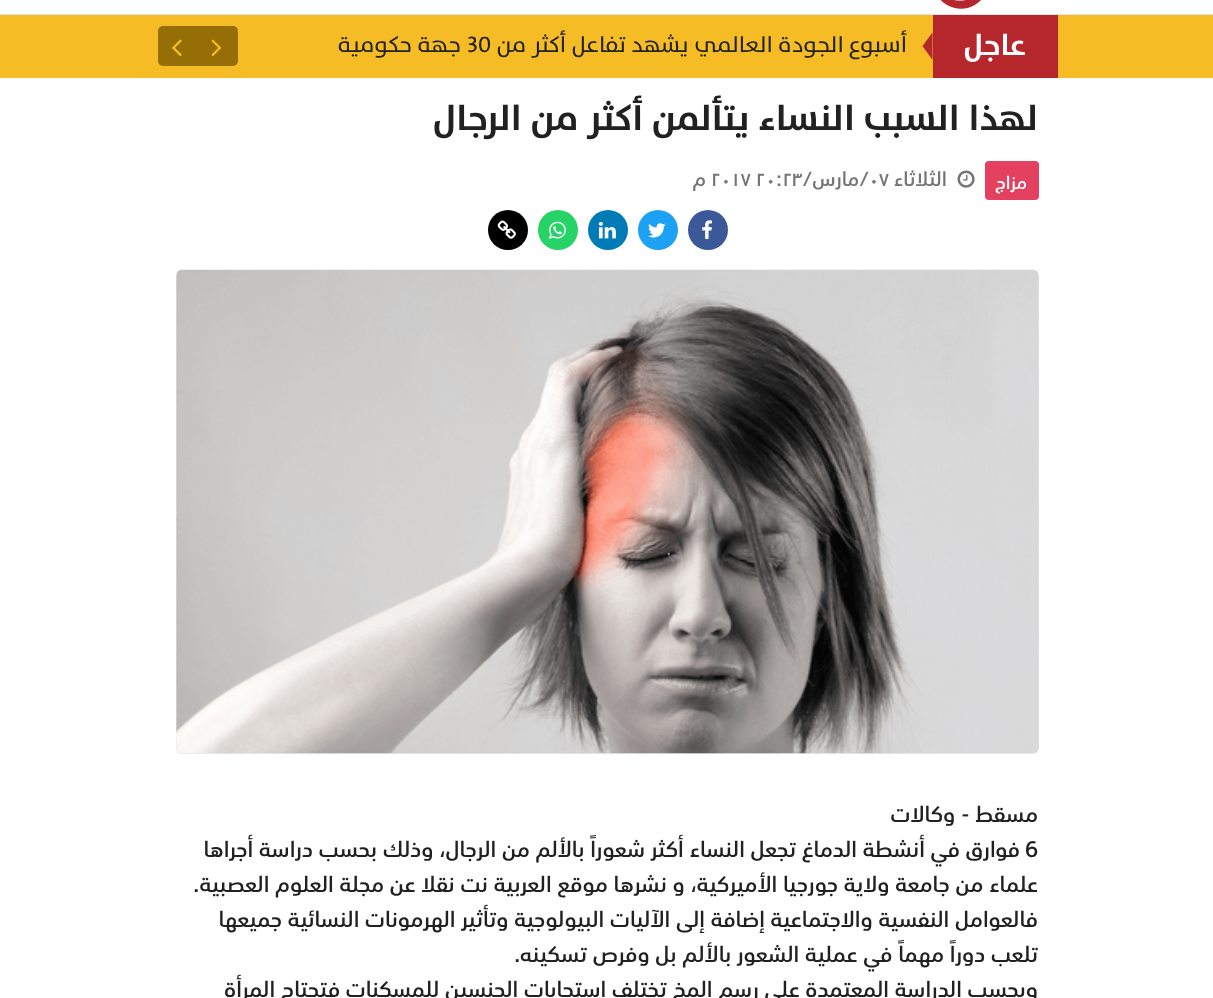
<!DOCTYPE html>
<meta charset="utf-8">
<style>body { margin: 0 } canvas { display: block }</style>
<canvas id="canvas" width="1213" height="998"></canvas>
<script type="module">
  const canvas = document.getElementById("canvas");
  const g = canvas.getContext("2d");
  g.miterLimit = 4;
  g.fontKerning = "normal";
  function drawText(s, x, y, [font, color]) {
    g.font = font;
    g.fillStyle = color;
    g.fillText(s, x, y);
  }
  function fillBox(x, y, w, h, color) {
    g.fillStyle = color;
    g.fillRect(x, y, w, h);
  }
  function fillRounded(x, y, w, h, r, color) {
    g.fillStyle = color;
    g.beginPath();
    g.roundRect(x, y, w, h, r);
    g.fill();
  }
  async function drawPicture(src, x, y, w, h) {
    const img = new Image();
    img.src = src;
    await img.decode();
    g.drawImage(img, x, y, w, h);
  }

  const s1 = ["bold 30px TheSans", "#FFFFFF"];
  const s2 = ["22.5px TheSans", "#212121"];
  const s3 = ["bold 36px TheSans", "#212121"];
  const s4 = ["500 18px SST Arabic", "#FFFFFF"];
  const s5 = ["500 20px SST Arabic", "#757575"];
  const s6 = ["500 22px SST Arabic", "#212121"];

  fillBox(0, 0, 1213, 998, "#FFFFFF");
  await drawPicture("pic1.png", 940, 0, 41, 9);
  fillBox(0, 14, 1213, 1, "#E0E0E0");
  fillBox(0, 15, 1213, 63, "#F6BC25");
  fillBox(933, 15, 125, 63, "#B5272D");
  g.direction = "rtl";
  drawText("عاجل", 1026, 55, s1);
  g.fillStyle = "#B5272D";
  g.beginPath();
  g.moveTo(932.5, 32.5);
  g.lineTo(932.5, 60);
  g.lineTo(922.5, 46);
  g.closePath();
  g.fill();
  drawText("أسبوع الجودة العالمي يشهد تفاعل أكثر من", 907, 52, s2);
  g.direction = "ltr";
  drawText("30", 467, 52, s2);
  g.direction = "rtl";
  drawText("جهة حكومية", 461, 52, s2);
  g.fillStyle = "#956E06";
  g.beginPath();
  g.roundRect(198, 26, 40, 40, [0, 5, 5, 0]);
  g.fill();
  await drawPicture("pic2.png", 211, 39, 11, 18);
  g.beginPath();
  g.roundRect(158, 26, 40, 40, [5, 0, 0, 5]);
  g.fill();
  await drawPicture("pic3.png", 172, 39, 10, 18);
  drawText("لهذا السبب النساء يتألمن أكثر من الرجال", 1038, 130, s3);
  fillRounded(985, 161, 54, 39, 4, "#E4405F");
  drawText("مزاج", 1027, 189, s4);
  await drawPicture("pic4.png", 957, 170, 18, 18);
  drawText("الثلاثاء", 947, 186, s5);
  g.direction = "ltr";
  drawText("٠٧", 869, 186, s5);
  g.direction = "rtl";
  drawText("/مارس/", 869, 186, s5);
  g.direction = "ltr";
  drawText("٢٠:٢٣ ٢٠١٧", 711, 186, s5);
  g.direction = "rtl";
  drawText("م", 706, 186, s5);
  g.fillStyle = "#3B5999";
  g.beginPath();
  g.arc(708, 230, 20, 0, Math.PI * 2);
  g.fill();
  await drawPicture("pic5.png", 702, 220, 10, 19);
  g.fillStyle = "#1DA1F2";
  g.beginPath();
  g.arc(658, 230, 20, 0, Math.PI * 2);
  g.fill();
  await drawPicture("pic6.png", 648, 223, 18, 15);
  g.fillStyle = "#007BB5";
  g.beginPath();
  g.arc(608, 230, 20, 0, Math.PI * 2);
  g.fill();
  await drawPicture("pic7.png", 598, 222, 18, 17);
  g.fillStyle = "#25D366";
  g.beginPath();
  g.arc(558, 230, 20, 0, Math.PI * 2);
  g.fill();
  await drawPicture("pic8.png", 548, 221, 18, 18);
  g.fillStyle = "#000000";
  g.beginPath();
  g.arc(508, 230, 20, 0, Math.PI * 2);
  g.fill();
  await drawPicture("pic9.png", 497, 220, 19, 19);
  fillRounded(176, 270, 863, 484, 6, "#E8E8E8");
  await drawPicture("pic10.png", 176, 269, 863, 485);
  drawText("مسقط - وكالات", 1038, 822, s6);
  g.direction = "ltr";
  drawText("6", 1025, 857, s6);
  g.direction = "rtl";
  drawText("فوارق في أنشطة الدماغ تجعل النساء أكثر شعوراً بالألم من الرجال، وذلك بحسب دراسة أجراها", 1020, 857, s6);
  drawText("علماء من جامعة ولاية جورجيا الأميركية، و نشرها موقع العربية نت نقلا عن مجلة العلوم العصبية", 1038, 892, s6);
  g.direction = "ltr";
  drawText(".", 193, 892, s6);
  g.direction = "rtl";
  drawText("فالعوامل النفسية والاجتماعية إضافة إلى الآليات البيولوجية وتأثير الهرمونات النسائية جميعها", 1038, 927, s6);
  drawText("تلعب دوراً مهماً في عملية الشعور بالألم بل وفرص تسكينه", 1038, 962, s6);
  g.direction = "ltr";
  drawText(".", 514, 962, s6);
  g.direction = "rtl";
  drawText("وبحسب الدراسة المعتمدة على رسم المخ تختلف استجابات الجنسين للمسكنات فتحتاج المرأة", 1038, 997, s6);
</script>
